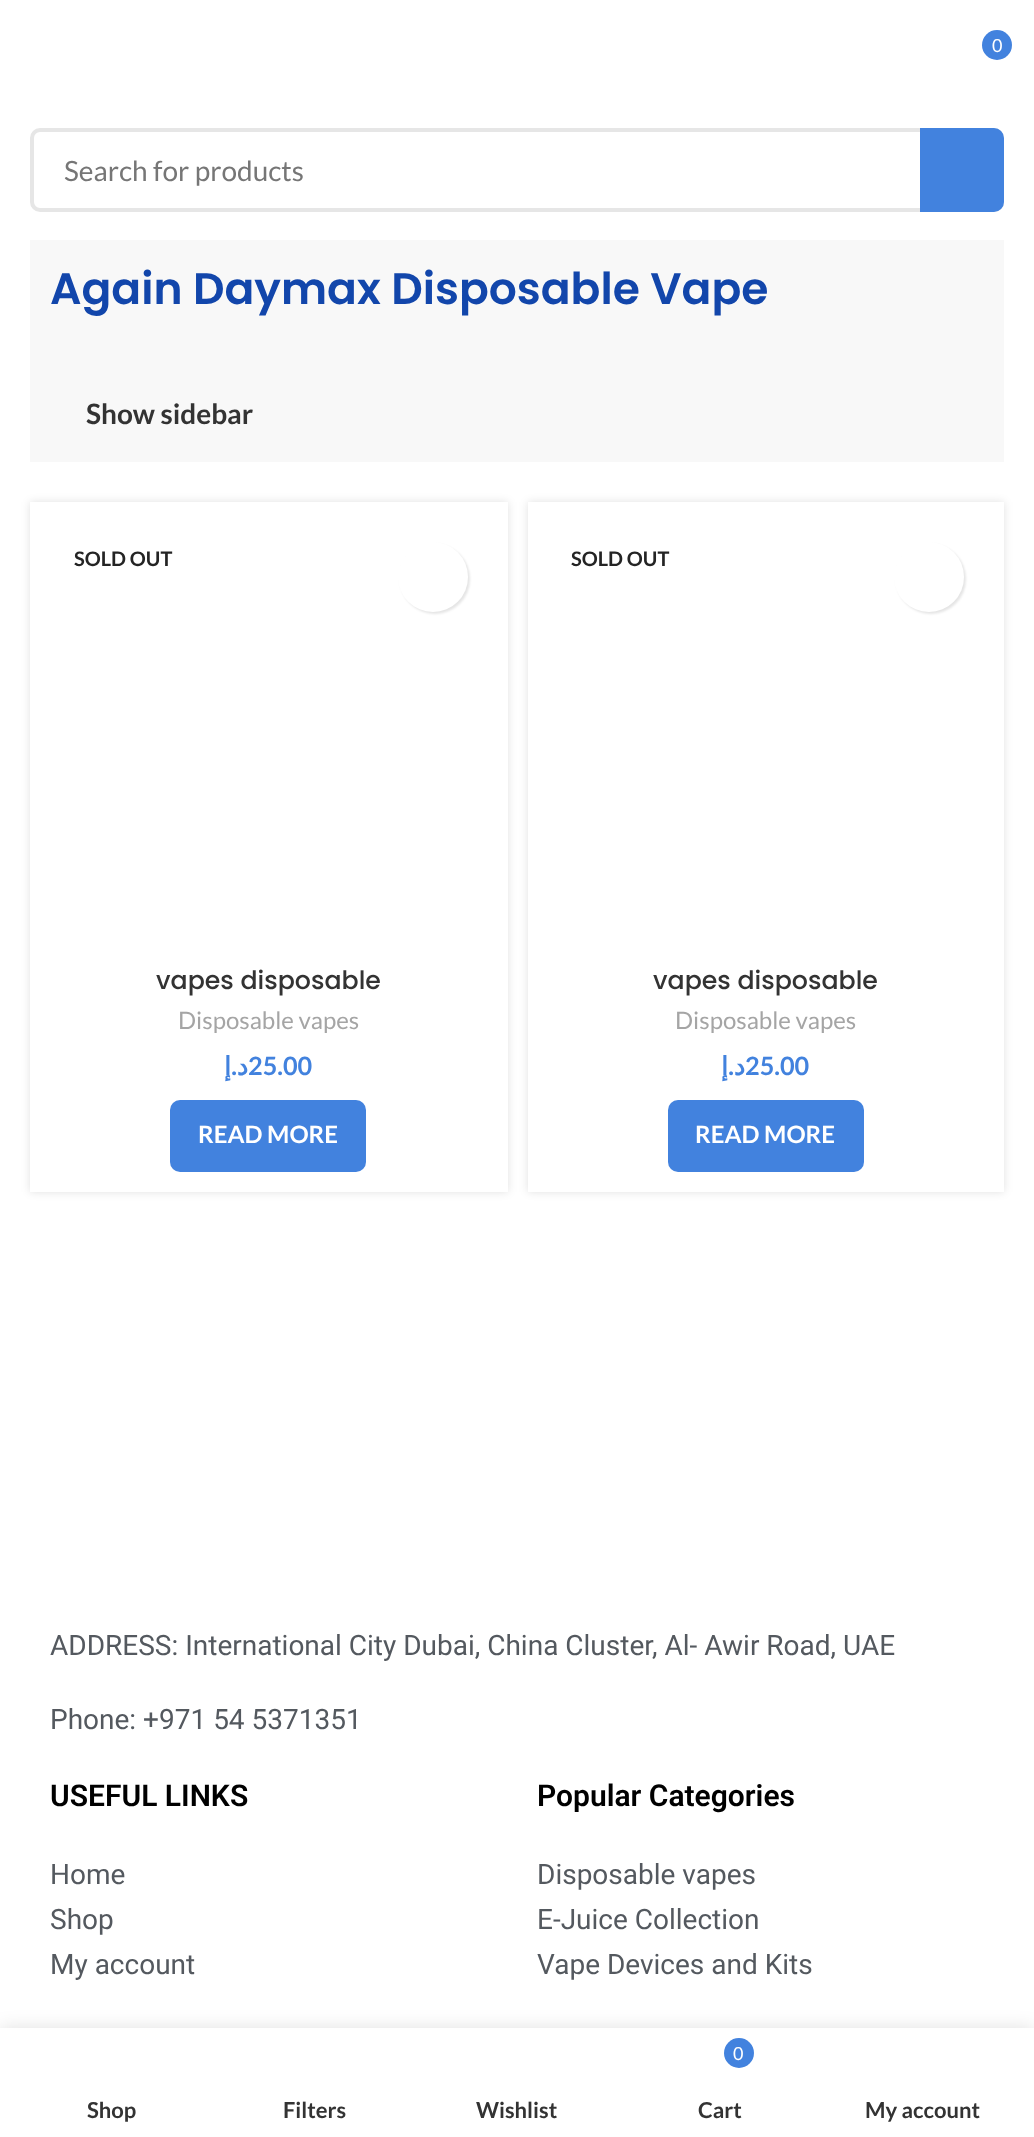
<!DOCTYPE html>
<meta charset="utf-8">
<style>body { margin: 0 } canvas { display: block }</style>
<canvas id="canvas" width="1034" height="2137"></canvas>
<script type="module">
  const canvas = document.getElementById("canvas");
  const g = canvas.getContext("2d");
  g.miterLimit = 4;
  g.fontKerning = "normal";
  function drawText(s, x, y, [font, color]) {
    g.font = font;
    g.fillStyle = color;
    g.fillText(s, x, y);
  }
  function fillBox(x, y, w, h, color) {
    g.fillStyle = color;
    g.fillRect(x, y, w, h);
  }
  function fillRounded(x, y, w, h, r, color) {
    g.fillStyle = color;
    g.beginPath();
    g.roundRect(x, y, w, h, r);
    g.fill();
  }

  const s1 = ["18px Lato", "#FFFFFF"];
  const s2 = ["28px Lato", "#767676"];
  const s3 = ["600 44px Poppins", "#1246AB"];
  const s4 = ["bold 28px Lato", "#333333"];
  const s5 = ["bold 20px Lato", "#242424"];
  const s6 = ["500 25.25px Poppins", "#333333"];
  const s7 = ["24px Lato", "#A5A5A5"];
  const s8 = ["bold 25.25px DejaVu Sans", "#4282DE"];
  const s9 = ["bold 25.25px Lato", "#4282DE"];
  const s10 = ["bold 24px Lato", "#FFFFFF"];
  const s11 = ["28px Roboto", "#54595F"];
  const s12 = ["600 30px Roboto", "#000000"];
  const s13 = ["bold 22px Lato", "#333333"];

  fillBox(0, 0, 1034, 2137, "#FFFFFF");
  g.fillStyle = "#4282DE";
  g.beginPath();
  g.arc(997, 45, 15, 0, Math.PI * 2);
  g.fill();
  drawText("0", 992, 52, s1);
  g.beginPath();
  g.roundRect(32, 130, 970, 80, 8);
  g.strokeStyle = "#E6E6E6";
  g.lineWidth = 4;
  g.stroke();
  drawText("Search for products", 64, 181, s2);
  g.fillStyle = "#4282DE";
  g.beginPath();
  g.roundRect(920, 128, 84, 84, [0, 10, 10, 0]);
  g.fill();
  fillBox(30, 240, 974, 222, "#F8F8F8");
  drawText("Again Daymax Disposable Vape", 50, 304, s3);
  drawText("Show sidebar", 86, 424, s4);
  g.save();
  g.beginPath();
  g.moveTo(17, 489);
  g.lineTo(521, 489);
  g.lineTo(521, 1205);
  g.lineTo(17, 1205);
  g.closePath();
  g.moveTo(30, 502);
  g.lineTo(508, 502);
  g.lineTo(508, 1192);
  g.lineTo(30, 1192);
  g.closePath();
  g.clip("evenodd");
  g.fillStyle = "rgba(0, 0, 0, 0.12)";
  g.filter = "blur(4px)";
  g.beginPath();
  g.rect(30, 502, 478, 690);
  g.fill();
  g.filter = "none";
  g.restore();
  drawText("SOLD OUT", 74, 566, s5);
  g.fillStyle = "rgba(0, 0, 0, 0.1)";
  g.filter = "blur(1px)";
  g.beginPath();
  g.roundRect(400, 544, 70, 70, 35);
  g.fill();
  g.filter = "none";
  g.fillStyle = "#FFFFFF";
  g.beginPath();
  g.arc(433, 577, 35, 0, Math.PI * 2);
  g.fill();
  drawText("vapes disposable", 156, 989, s6);
  drawText("Disposable vapes", 178, 1029, s7);
  g.direction = "rtl";
  drawText("إ", 231, 1075, s8);
  drawText(".", 237, 1075, s9);
  drawText("د", 248, 1075, s8);
  g.direction = "ltr";
  drawText("25.00", 248, 1075, s9);
  fillRounded(170, 1100, 196, 72, 10, "#4282DE");
  drawText("READ MORE", 198, 1143, s10);
  g.save();
  g.beginPath();
  g.moveTo(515, 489);
  g.lineTo(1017, 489);
  g.lineTo(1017, 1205);
  g.lineTo(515, 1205);
  g.closePath();
  g.moveTo(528, 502);
  g.lineTo(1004, 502);
  g.lineTo(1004, 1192);
  g.lineTo(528, 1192);
  g.closePath();
  g.clip("evenodd");
  g.fillStyle = "rgba(0, 0, 0, 0.12)";
  g.filter = "blur(4px)";
  g.beginPath();
  g.rect(528, 502, 476, 690);
  g.fill();
  g.filter = "none";
  g.restore();
  drawText("SOLD OUT", 571, 566, s5);
  g.fillStyle = "rgba(0, 0, 0, 0.1)";
  g.filter = "blur(1px)";
  g.beginPath();
  g.roundRect(896, 544, 70, 70, 35);
  g.fill();
  g.filter = "none";
  g.fillStyle = "#FFFFFF";
  g.beginPath();
  g.arc(929, 577, 35, 0, Math.PI * 2);
  g.fill();
  drawText("vapes disposable", 653, 989, s6);
  drawText("Disposable vapes", 675, 1029, s7);
  g.direction = "rtl";
  drawText("إ", 728, 1075, s8);
  drawText(".", 734, 1075, s9);
  drawText("د", 745, 1075, s8);
  g.direction = "ltr";
  drawText("25.00", 745, 1075, s9);
  fillRounded(668, 1100, 196, 72, 10, "#4282DE");
  drawText("READ MORE", 695, 1143, s10);
  drawText("ADDRESS: International City Dubai, China Cluster, Al- Awir Road, UAE", 50, 1655, s11);
  drawText("Phone: +971 54 5371351", 50, 1729, s11);
  drawText("USEFUL LINKS", 50, 1806, s12);
  drawText("Home", 50, 1884, s11);
  drawText("Shop", 50, 1929, s11);
  drawText("My account", 50, 1974, s11);
  drawText("Popular Categories", 537, 1806, s12);
  drawText("Disposable vapes", 537, 1884, s11);
  drawText("E-Juice Collection", 537, 1929, s11);
  drawText("Vape Devices and Kits", 537, 1974, s11);
  g.fillStyle = "rgba(0, 0, 0, 0.12)";
  g.filter = "blur(9px)";
  g.beginPath();
  g.rect(0, 2028, 1034, 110);
  g.fill();
  g.filter = "none";
  fillBox(0, 2028, 1034, 109, "#FFFFFF");
  drawText("Shop", 87, 2118, s13);
  drawText("Filters", 283, 2118, s13);
  drawText("Wishlist", 476, 2118, s13);
  g.fillStyle = "#4282DE";
  g.beginPath();
  g.arc(739, 2053, 15, 0, Math.PI * 2);
  g.fill();
  drawText("0", 733, 2060, s1);
  drawText("Cart", 698, 2118, s13);
  drawText("My account", 865, 2118, s13);
</script>
